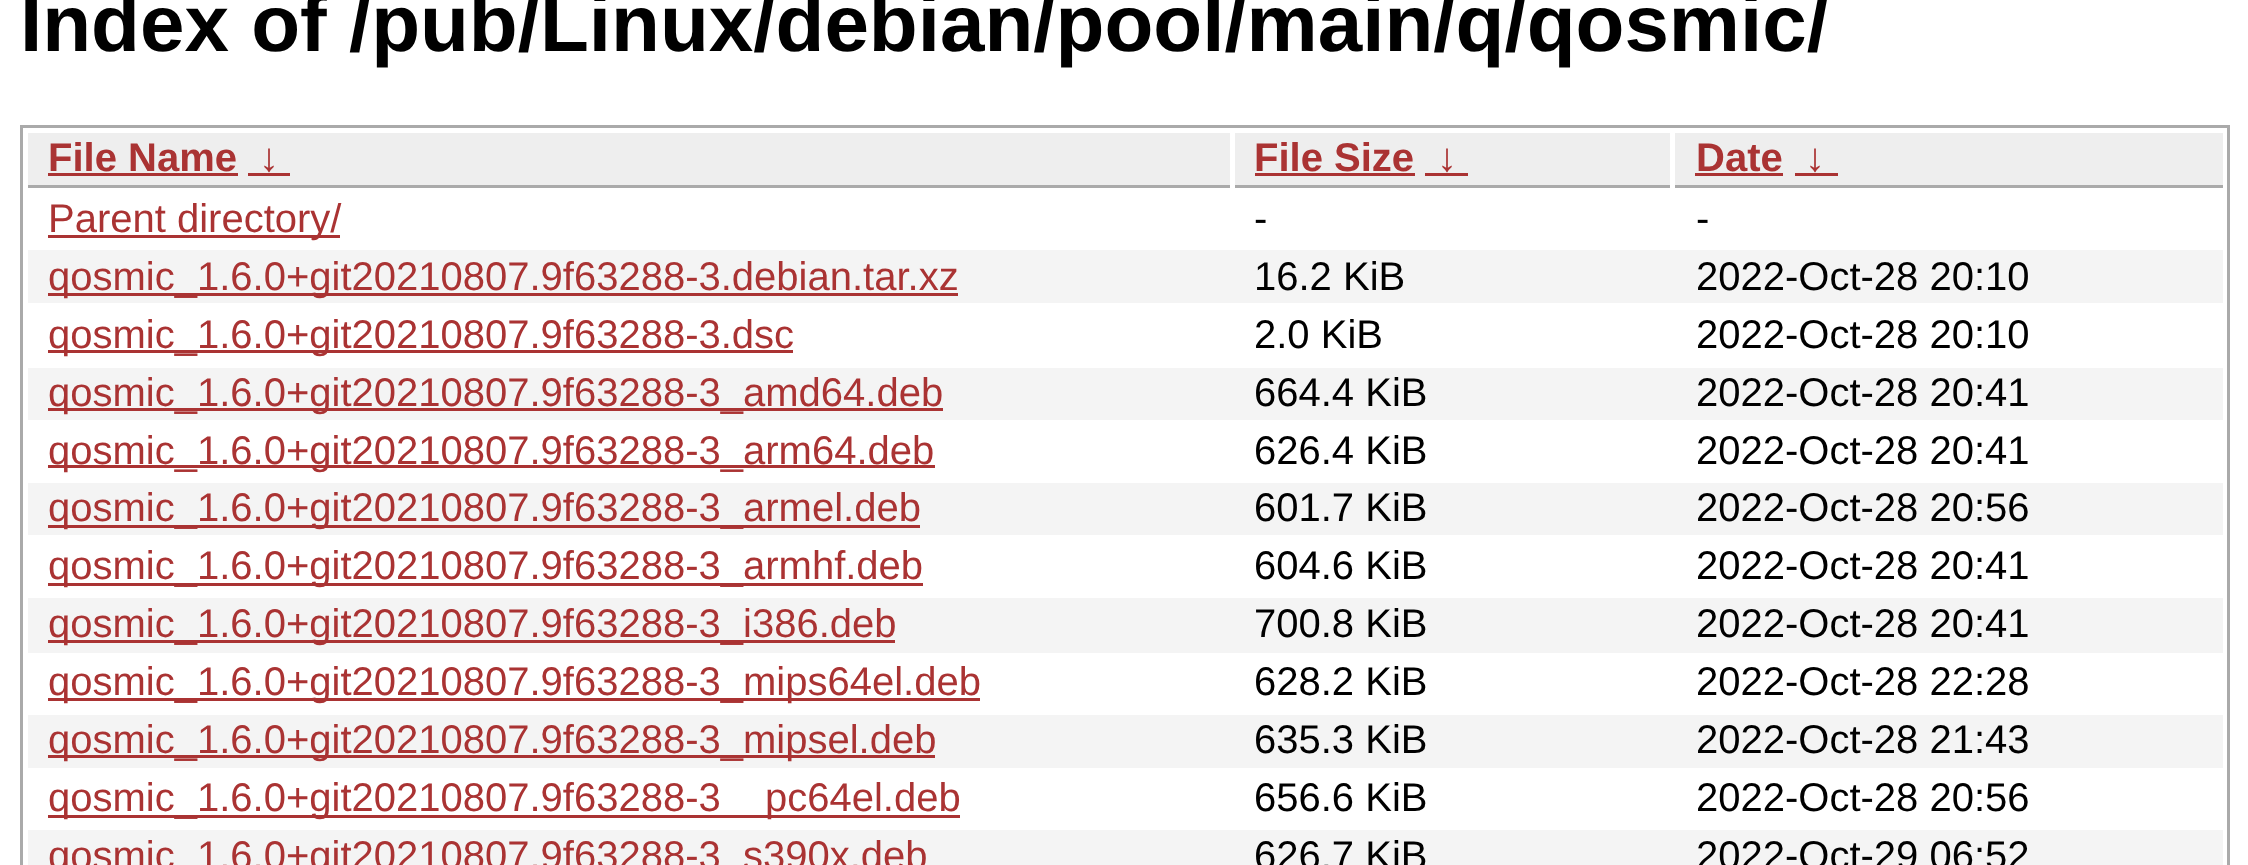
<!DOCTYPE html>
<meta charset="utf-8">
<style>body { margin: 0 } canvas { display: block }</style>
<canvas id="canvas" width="2248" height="865"></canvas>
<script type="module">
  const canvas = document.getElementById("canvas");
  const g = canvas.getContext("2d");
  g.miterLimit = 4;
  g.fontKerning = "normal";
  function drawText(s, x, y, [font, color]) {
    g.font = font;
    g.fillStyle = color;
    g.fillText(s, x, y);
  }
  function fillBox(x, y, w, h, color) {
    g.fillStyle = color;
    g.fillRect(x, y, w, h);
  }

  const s1 = ["bold 80px Liberation Sans", "#000000"];
  const s2 = ["bold 40px Liberation Sans", "#AA3333"];
  const s3 = ["40px Liberation Sans", "#AA3333"];
  const s4 = ["40px Liberation Sans", "#000000"];

  fillBox(0, 0, 2248, 865, "#FFFFFF");
  drawText("Index of /pub/Linux/debian/pool/main/q/qosmic/", 20, 51, s1);
  g.strokeStyle = "#AAAAAA";
  g.lineWidth = 3;
  g.strokeRect(21.5, 126.5, 2207, 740);
  fillBox(28, 133, 1202, 52, "#EEEEEE");
  fillBox(28, 185, 1202, 3, "#AAAAAA");
  drawText("File Name", 48, 171, s2);
  fillBox(48, 173, 190, 3, "#AA3333");
  drawText("↓", 259, 171, s2);
  fillBox(248, 173, 42, 3, "#AA3333");
  fillBox(1235, 133, 435, 52, "#EEEEEE");
  fillBox(1235, 185, 435, 3, "#AAAAAA");
  drawText("File Size", 1254, 171, s2);
  fillBox(1255, 173, 160, 3, "#AA3333");
  drawText("↓", 1437, 171, s2);
  fillBox(1425, 173, 43, 3, "#AA3333");
  fillBox(1675, 133, 548, 52, "#EEEEEE");
  fillBox(1675, 185, 548, 3, "#AAAAAA");
  drawText("Date", 1696, 171, s2);
  fillBox(1695, 173, 88, 3, "#AA3333");
  drawText("↓", 1805, 171, s2);
  fillBox(1795, 173, 43, 3, "#AA3333");
  fillBox(48, 235, 292, 3, "#AA3333");
  drawText("Parent directory/", 48, 232, s3);
  drawText("-", 1254, 232, s4);
  drawText("-", 1696, 232, s4);
  fillBox(28, 250, 2195, 53, "#F4F4F4");
  fillBox(48, 293, 910, 3, "#AA3333");
  drawText("qosmic_1.6.0+git20210807.9f63288-3.debian.tar.xz", 48, 290, s3);
  drawText("16.2 KiB", 1254, 290, s4);
  drawText("2022-Oct-28 20:10", 1696, 290, s4);
  fillBox(48, 350, 745, 3, "#AA3333");
  drawText("qosmic_1.6.0+git20210807.9f63288-3.dsc", 48, 348, s3);
  drawText("2.0 KiB", 1254, 348, s4);
  drawText("2022-Oct-28 20:10", 1696, 348, s4);
  fillBox(28, 368, 2195, 52, "#F4F4F4");
  fillBox(48, 408, 895, 3, "#AA3333");
  drawText("qosmic_1.6.0+git20210807.9f63288-3_amd64.deb", 48, 406, s3);
  drawText("664.4 KiB", 1254, 406, s4);
  drawText("2022-Oct-28 20:41", 1696, 406, s4);
  fillBox(48, 465, 887, 3, "#AA3333");
  drawText("qosmic_1.6.0+git20210807.9f63288-3_arm64.deb", 48, 464, s3);
  drawText("626.4 KiB", 1254, 464, s4);
  drawText("2022-Oct-28 20:41", 1696, 464, s4);
  fillBox(28, 483, 2195, 52, "#F4F4F4");
  fillBox(48, 525, 872, 3, "#AA3333");
  drawText("qosmic_1.6.0+git20210807.9f63288-3_armel.deb", 48, 521, s3);
  drawText("601.7 KiB", 1254, 521, s4);
  drawText("2022-Oct-28 20:56", 1696, 521, s4);
  fillBox(48, 583, 875, 3, "#AA3333");
  drawText("qosmic_1.6.0+git20210807.9f63288-3_armhf.deb", 48, 579, s3);
  drawText("604.6 KiB", 1254, 579, s4);
  drawText("2022-Oct-28 20:41", 1696, 579, s4);
  fillBox(28, 598, 2195, 55, "#F4F4F4");
  fillBox(48, 640, 847, 3, "#AA3333");
  drawText("qosmic_1.6.0+git20210807.9f63288-3_i386.deb", 48, 637, s3);
  drawText("700.8 KiB", 1254, 637, s4);
  drawText("2022-Oct-28 20:41", 1696, 637, s4);
  fillBox(48, 698, 932, 3, "#AA3333");
  drawText("qosmic_1.6.0+git20210807.9f63288-3_mips64el.deb", 48, 695, s3);
  drawText("628.2 KiB", 1254, 695, s4);
  drawText("2022-Oct-28 22:28", 1696, 695, s4);
  fillBox(28, 715, 2195, 53, "#F4F4F4");
  fillBox(48, 755, 887, 3, "#AA3333");
  drawText("qosmic_1.6.0+git20210807.9f63288-3_mipsel.deb", 48, 753, s3);
  drawText("635.3 KiB", 1254, 753, s4);
  drawText("2022-Oct-28 21:43", 1696, 753, s4);
  fillBox(48, 815, 912, 3, "#AA3333");
  drawText("qosmic_1.6.0+git20210807.9f63288-3", 48, 811, s3);
  drawText("pc64el.deb", 765, 811, s3);
  drawText("656.6 KiB", 1254, 811, s4);
  drawText("2022-Oct-28 20:56", 1696, 811, s4);
  fillBox(28, 830, 2195, 35, "#F4F4F4");
  drawText("qosmic_1.6.0+git20210807.9f63288-3_s390x.deb", 48, 869, s3);
  drawText("626.7 KiB", 1254, 869, s4);
  drawText("2022-Oct-29 06:52", 1696, 869, s4);
</script>
